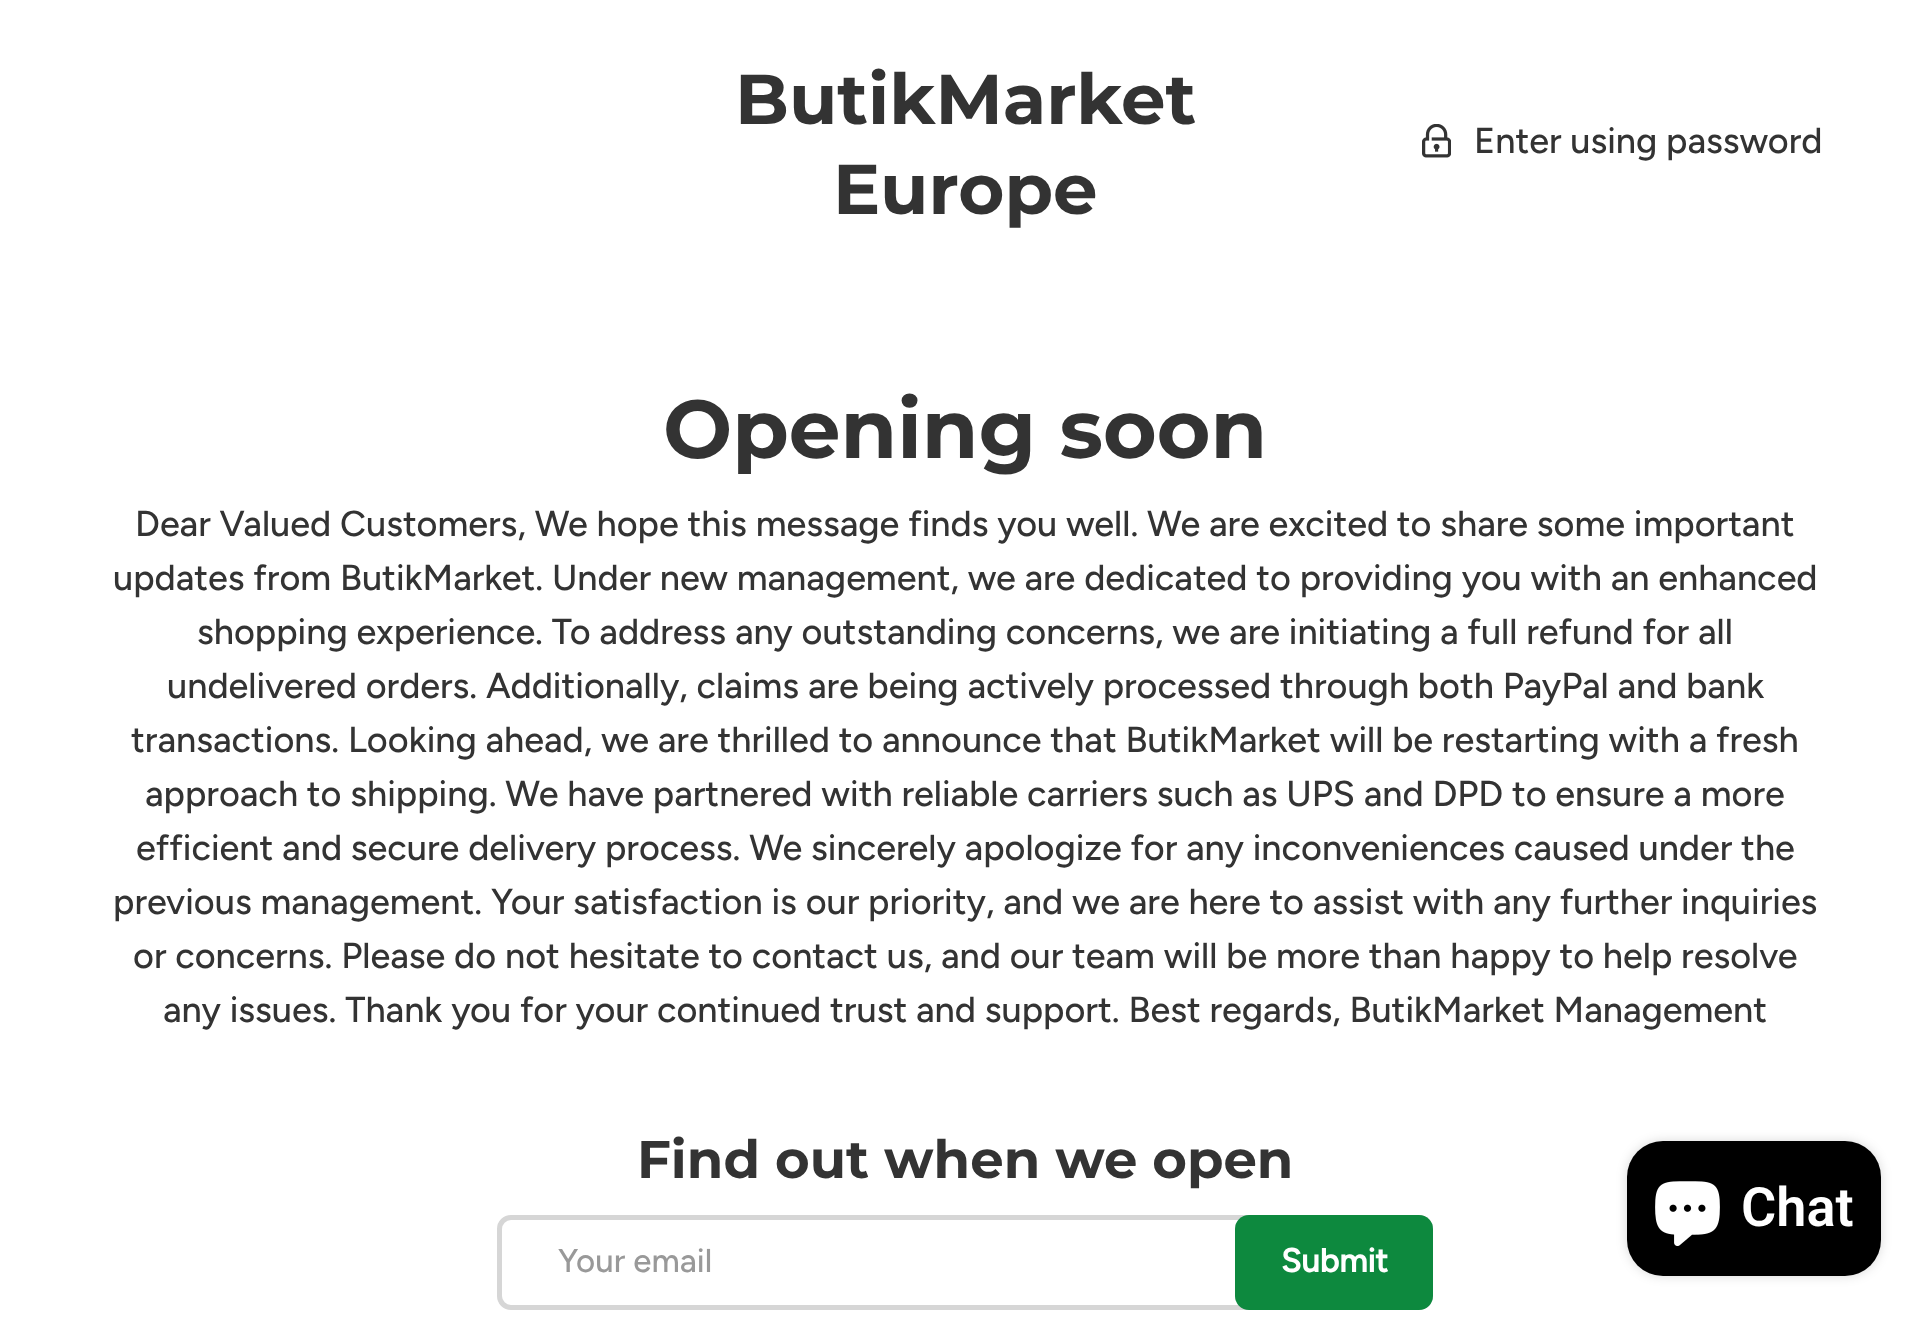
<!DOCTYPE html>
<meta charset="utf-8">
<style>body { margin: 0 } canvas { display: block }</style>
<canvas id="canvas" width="1930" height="1322"></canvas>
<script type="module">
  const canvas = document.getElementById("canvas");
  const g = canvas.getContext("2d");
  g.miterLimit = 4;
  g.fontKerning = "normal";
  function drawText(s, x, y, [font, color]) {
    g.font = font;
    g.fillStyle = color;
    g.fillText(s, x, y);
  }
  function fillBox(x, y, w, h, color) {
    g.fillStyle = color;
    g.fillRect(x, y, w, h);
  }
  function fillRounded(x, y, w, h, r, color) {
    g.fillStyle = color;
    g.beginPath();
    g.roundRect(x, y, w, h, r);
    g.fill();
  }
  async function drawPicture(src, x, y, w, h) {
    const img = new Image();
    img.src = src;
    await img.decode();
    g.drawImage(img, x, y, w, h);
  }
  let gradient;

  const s1 = ["bold 70.5px Montserrat", "#333333"];
  const s2 = ["500 36px Figtree", "#333333"];
  const s3 = ["bold 82px Montserrat", "#333333"];
  const s4 = ["bold 52.9px Montserrat", "#333333"];
  const s5 = ["500 33px Figtree", "#999999"];
  const s6 = ["bold 33px Figtree", "#FFFFFF"];
  const s7 = ["600 54px Roboto", "#FFFFFF"];

  fillBox(0, 0, 1930, 1322, "#FFFFFF");
  drawText("ButikMarket", 735, 124, s1);
  drawText("Europe", 833, 214, s1);
  await drawPicture("pic1.png", 1422, 124, 29, 34);
  drawText("Enter using password", 1474, 153, s2);
  drawText("Opening soon", 663, 458, s3);
  drawText("Dear Valued Customers, We hope this message finds you well. We are excited to share some important", 135, 536, s2);
  drawText("updates from ButikMarket. Under new management, we are dedicated to providing you with an enhanced", 113, 590, s2);
  drawText("shopping experience. To address any outstanding concerns, we are initiating a full refund for all", 197, 644, s2);
  drawText("undelivered orders. Additionally, claims are being actively processed through both PayPal and bank", 167, 698, s2);
  drawText("transactions. Looking ahead, we are thrilled to announce that ButikMarket will be restarting with a fresh", 131, 752, s2);
  drawText("approach to shipping. We have partnered with reliable carriers such as UPS and DPD to ensure a more", 145, 806, s2);
  drawText("efficient and secure delivery process. We sincerely apologize for any inconveniences caused under the", 136, 860, s2);
  drawText("previous management. Your satisfaction is our priority, and we are here to assist with any further inquiries", 113, 914, s2);
  drawText("or concerns. Please do not hesitate to contact us, and our team will be more than happy to help resolve", 133, 968, s2);
  drawText("any issues. Thank you for your continued trust and support. Best regards, ButikMarket Management", 163, 1022, s2);
  drawText("Find out when we open", 637, 1178, s4);
  g.beginPath();
  g.roundRect(499.5, 1217.5, 931, 90, 11.5);
  g.strokeStyle = "#D6D6D6";
  g.lineWidth = 5;
  g.stroke();
  drawText("Your email", 558, 1272, s5);
  gradient = g.createLinearGradient(846, 1190, 1427, 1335);
  gradient.addColorStop(0.6, "#35A762");
  gradient.addColorStop(0.6, "#0D893E");
  gradient.addColorStop(1, "#0D893E");
  g.fillStyle = gradient;
  g.beginPath();
  g.roundRect(1235, 1215, 198, 95, 14);
  g.fill();
  drawText("Submit", 1281, 1272, s6);
  g.fillStyle = "rgba(0, 0, 0, 0.15)";
  g.filter = "blur(5.5px)";
  g.beginPath();
  g.roundRect(1627, 1141, 254, 135, 36);
  g.fill();
  g.filter = "none";
  fillRounded(1627, 1141, 254, 135, 36, "#000000");
  await drawPicture("pic2.png", 1655, 1181, 65, 65);
  drawText("Chat", 1741, 1226, s7);
</script>
